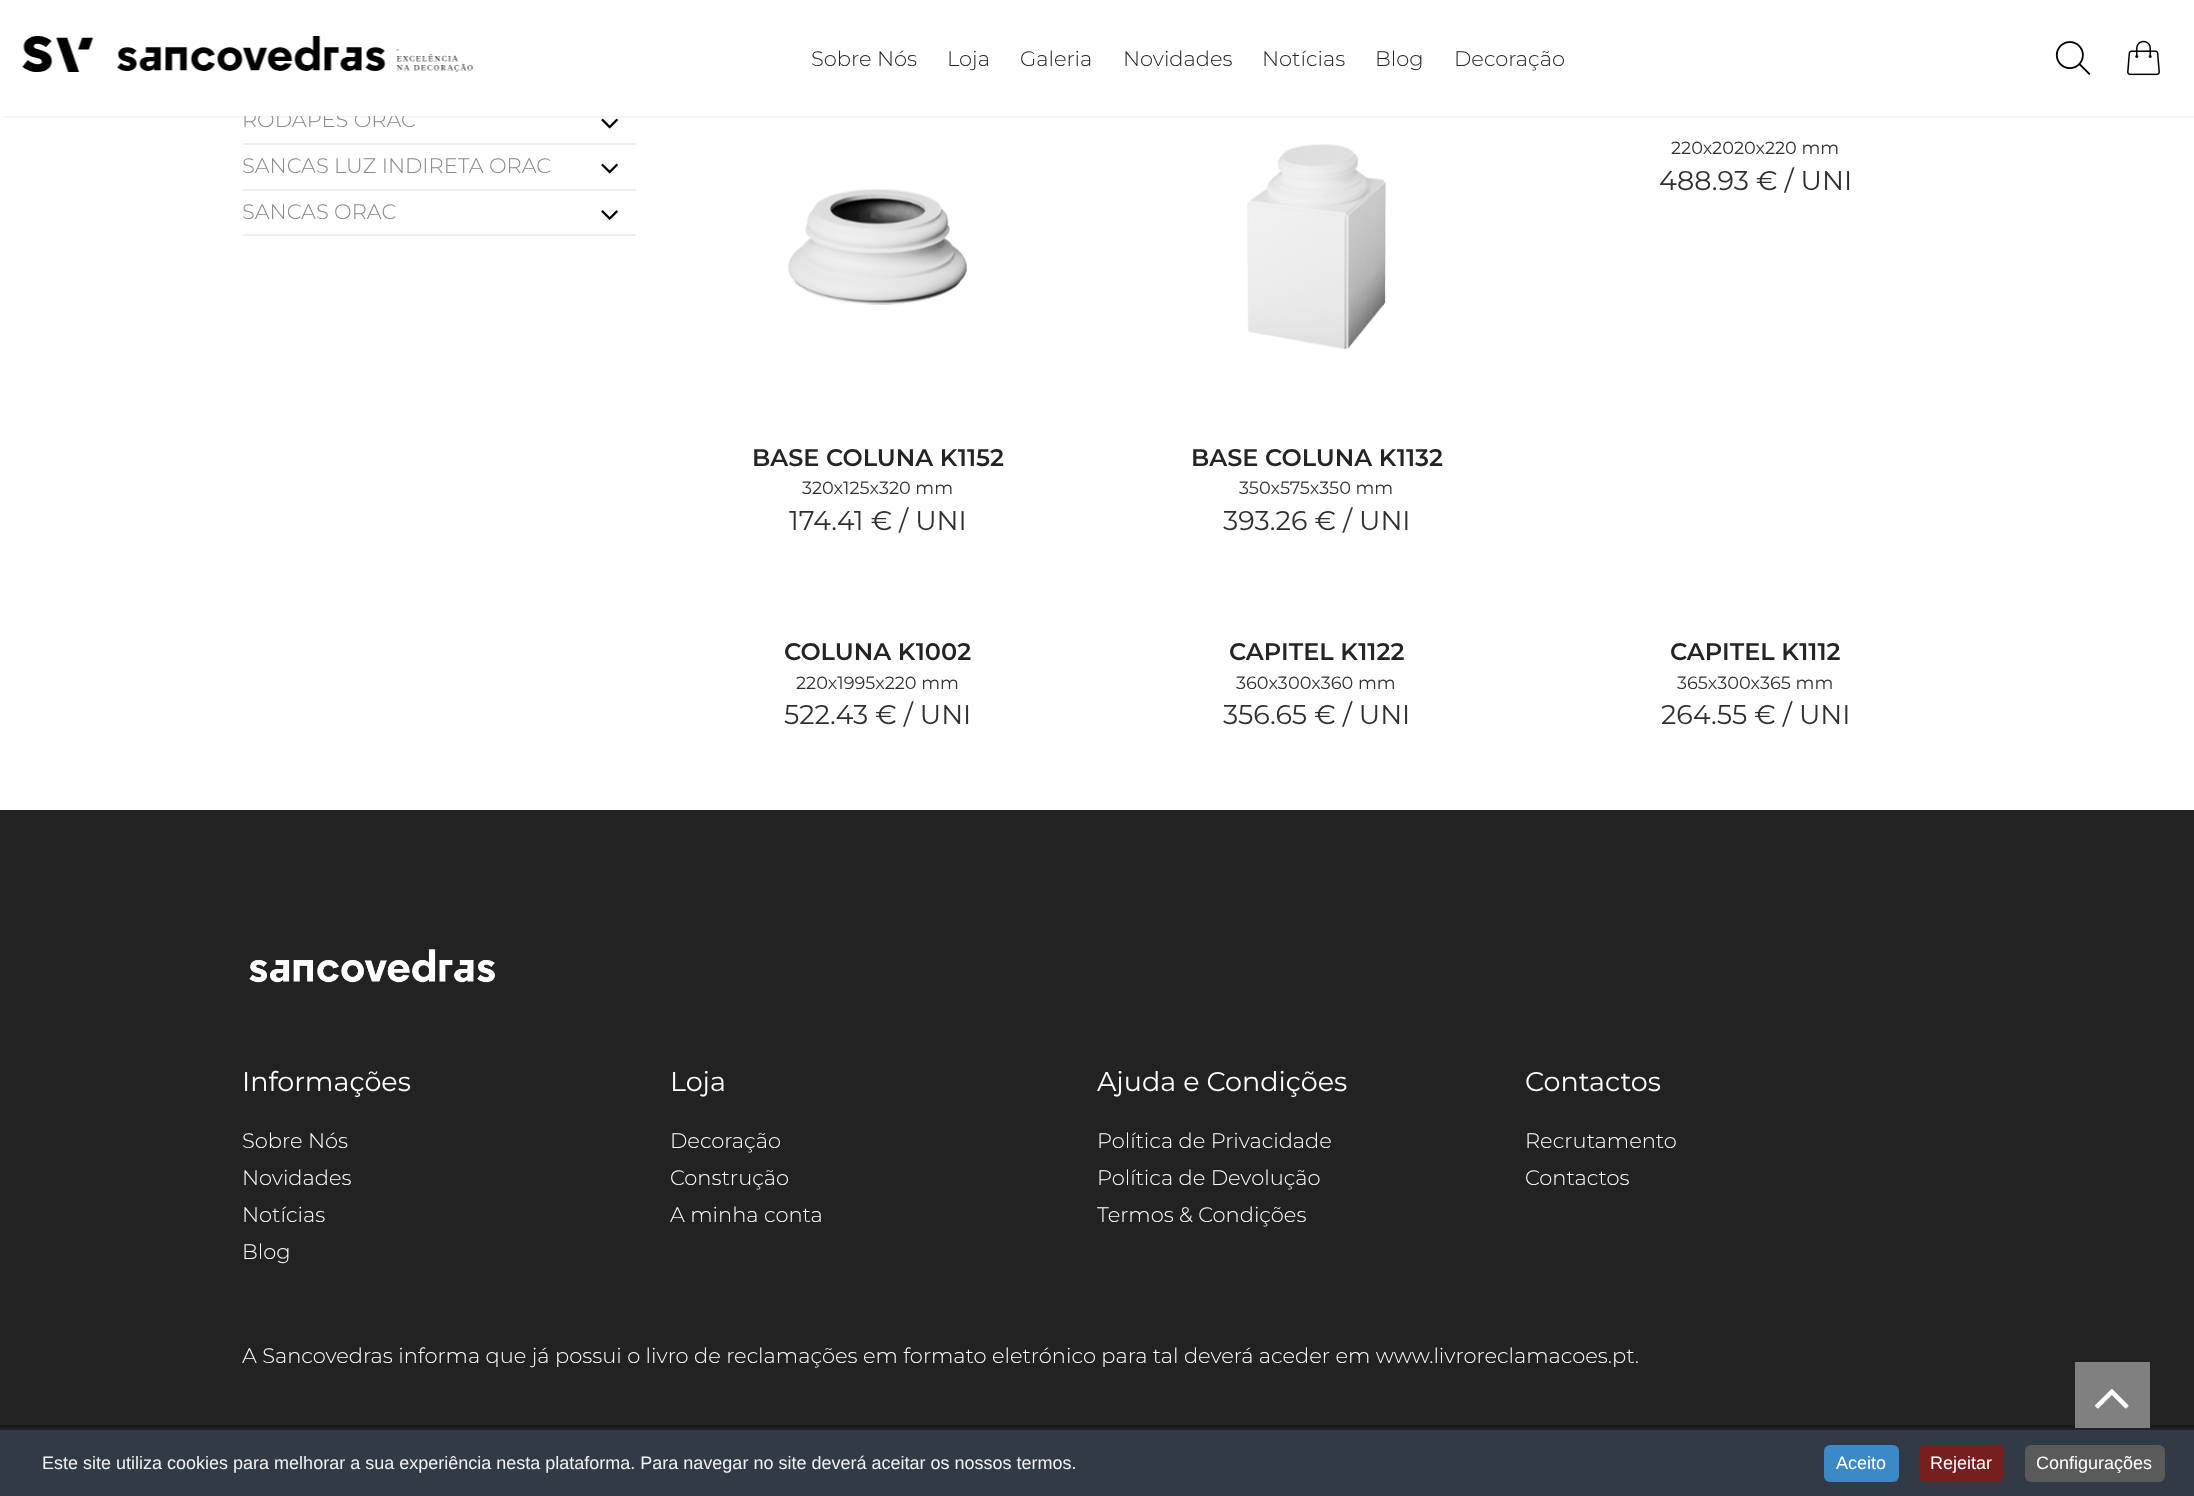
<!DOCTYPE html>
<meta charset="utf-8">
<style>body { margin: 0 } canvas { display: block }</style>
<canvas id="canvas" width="2194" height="1496"></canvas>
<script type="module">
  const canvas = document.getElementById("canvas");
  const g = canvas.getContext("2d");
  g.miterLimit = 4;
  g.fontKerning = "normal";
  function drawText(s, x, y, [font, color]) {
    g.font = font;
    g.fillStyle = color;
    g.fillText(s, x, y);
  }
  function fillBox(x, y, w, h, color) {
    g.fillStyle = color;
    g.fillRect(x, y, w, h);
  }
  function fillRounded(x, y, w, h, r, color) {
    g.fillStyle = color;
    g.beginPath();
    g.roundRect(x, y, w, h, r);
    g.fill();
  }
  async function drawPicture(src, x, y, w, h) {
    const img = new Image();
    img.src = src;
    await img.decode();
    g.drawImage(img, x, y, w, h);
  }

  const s1 = ["300 21px Montserrat", "#888888"];
  const s2 = ["300 21px Montserrat", "#242424"];
  const s3 = ["17.75px Montserrat", "#303030"];
  const s4 = ["27px Montserrat", "#303030"];
  const s5 = ["600 24px Montserrat", "#242424"];
  const s6 = ["27px Montserrat", "#FFFFFF"];
  const s7 = ["300 21px Montserrat", "#FFFFFF"];
  const s8 = ["18px Liberation Sans", "#F1F1F3"];
  const s9 = ["18px Liberation Sans", "#FFFFFF"];

  fillBox(0, 0, 2194, 1496, "#FFFFFF");
  await drawPicture("pic4.png", 601, 118, 17, 11);
  g.fillStyle = "#EFEFEF";
  g.filter = "blur(1px)";
  g.beginPath();
  g.rect(2, 2, 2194, 115);
  g.fill();
  g.filter = "none";
  drawText("RODAPÉS ORAC", 242, 127, s1);
  fillBox(1, 1, 2193, 115, "#FFFFFF");
  await drawPicture("pic1.png", 22, 36, 451, 36);
  drawText("Sobre Nós", 811, 66, s2);
  drawText("Loja", 947, 66, s2);
  drawText("Galeria", 1020, 66, s2);
  drawText("Novidades", 1123, 66, s2);
  drawText("Notícias", 1262, 66, s2);
  drawText("Blog", 1375, 66, s2);
  drawText("Decoração", 1454, 66, s2);
  await drawPicture("pic2.png", 2055, 41, 36, 34);
  await drawPicture("pic3.png", 2127, 40, 33, 36);
  fillBox(243, 143, 393, 2, "#EEEEEE");
  fillBox(243, 189, 393, 2, "#EEEEEE");
  drawText("SANCAS LUZ INDIRETA ORAC", 242, 173, s1);
  await drawPicture("pic4.png", 601, 163, 17, 11);
  fillBox(243, 234, 393, 2, "#EEEEEE");
  drawText("SANCAS ORAC", 242, 219, s1);
  await drawPicture("pic5.png", 601, 210, 17, 10);
  drawText("220x2020x220 mm", 1671, 154, s3);
  drawText("488.93 € / UNI", 1659, 190, s4);
  await drawPicture("pic6.png", 788, 189, 179, 116);
  drawText("BASE COLUNA K1152", 752, 466, s5);
  drawText("320x125x320 mm", 802, 494, s3);
  drawText("174.41 € / UNI", 789, 530, s4);
  await drawPicture("pic7.png", 1247, 144, 139, 206);
  drawText("BASE COLUNA K1132", 1191, 466, s5);
  drawText("350x575x350 mm", 1239, 494, s3);
  drawText("393.26 € / UNI", 1223, 530, s4);
  drawText("COLUNA K1002", 784, 660, s5);
  drawText("220x1995x220 mm", 796, 689, s3);
  drawText("522.43 € / UNI", 784, 724, s4);
  drawText("CAPITEL K1122", 1229, 660, s5);
  drawText("360x300x360 mm", 1236, 689, s3);
  drawText("356.65 € / UNI", 1223, 724, s4);
  drawText("CAPITEL K1112", 1670, 660, s5);
  drawText("365x300x365 mm", 1677, 689, s3);
  drawText("264.55 € / UNI", 1661, 724, s4);
  fillBox(0, 810, 2194, 615, "#222222");
  await drawPicture("pic8.png", 249, 949, 246, 34);
  drawText("Informações", 242, 1091, s6);
  drawText("Sobre Nós", 242, 1148, s7);
  drawText("Novidades", 242, 1185, s7);
  drawText("Notícias", 242, 1222, s7);
  drawText("Blog", 242, 1259, s7);
  drawText("Loja", 670, 1091, s6);
  drawText("Decoração", 670, 1148, s7);
  drawText("Construção", 670, 1185, s7);
  drawText("A minha conta", 670, 1222, s7);
  drawText("Ajuda e Condições", 1097, 1091, s6);
  drawText("Política de Privacidade", 1097, 1148, s7);
  drawText("Política de Devolução", 1097, 1185, s7);
  drawText("Termos & Condições", 1097, 1222, s7);
  drawText("Contactos", 1525, 1091, s6);
  drawText("Recrutamento", 1525, 1148, s7);
  drawText("Contactos", 1525, 1185, s7);
  drawText("A Sancovedras informa que já possui o livro de reclamações em formato eletrónico para tal deverá aceder em www.livroreclamacoes.pt.", 242, 1363, s7);
  fillBox(0, 1425, 2194, 3, "#1A1A1A");
  fillBox(2075, 1362, 75, 66, "#808080");
  await drawPicture("pic9.png", 2095, 1389, 34, 20);
  fillBox(0, 1430, 2194, 66, "#323A45");
  fillBox(0, 1428, 2194, 2, "#202226");
  drawText("Este site utiliza cookies para melhorar a sua experiência nesta plataforma. Para navegar no site deverá aceitar os nossos termos.", 42, 1469, s8);
  fillRounded(1824, 1445, 75, 37, 6, "#3B89C7");
  drawText("Aceito", 1836, 1469, s9);
  fillRounded(1919, 1445, 85, 37, 6, "#771F1F");
  drawText("Rejeitar", 1930, 1469, s9);
  fillRounded(2025, 1445, 140, 37, 6, "#5A5A5A");
  drawText("Configurações", 2036, 1469, s9);
</script>
